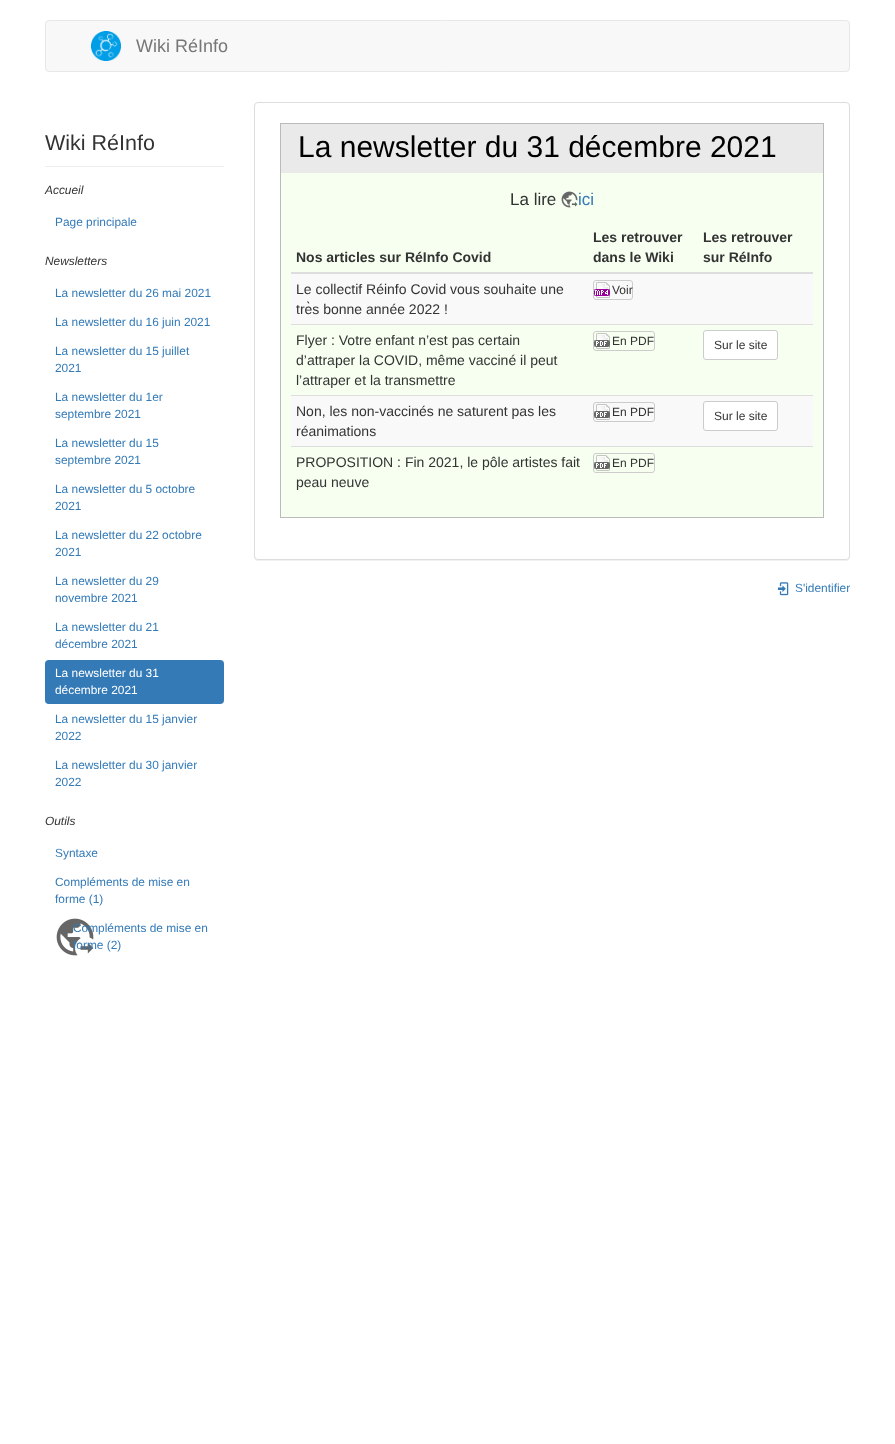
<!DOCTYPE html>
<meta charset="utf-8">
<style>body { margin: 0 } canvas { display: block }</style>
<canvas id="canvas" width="895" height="1444"></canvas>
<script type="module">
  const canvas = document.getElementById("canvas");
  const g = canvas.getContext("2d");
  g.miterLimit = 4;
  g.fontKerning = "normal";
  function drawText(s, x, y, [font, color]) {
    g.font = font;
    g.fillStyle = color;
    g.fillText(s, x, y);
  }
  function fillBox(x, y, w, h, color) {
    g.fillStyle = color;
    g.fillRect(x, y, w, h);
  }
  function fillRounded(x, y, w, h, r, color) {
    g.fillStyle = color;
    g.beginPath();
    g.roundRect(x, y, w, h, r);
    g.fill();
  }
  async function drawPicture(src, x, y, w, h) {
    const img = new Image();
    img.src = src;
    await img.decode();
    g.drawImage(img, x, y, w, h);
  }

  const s1 = ["18px Liberation Sans", "#777777"];
  const s2 = ["21.5px Liberation Sans", "#333333"];
  const s3 = ["italic 11.9px Liberation Sans", "#333333"];
  const s4 = ["11.9px Liberation Sans", "#337AB7"];
  const s5 = ["11.9px Liberation Sans", "#FFFFFF"];
  const s6 = ["30px Liberation Sans", "#000000"];
  const s7 = ["17px Liberation Sans", "#333333"];
  const s8 = ["17px Liberation Sans", "#337AB7"];
  const s9 = ["bold 14px Liberation Sans", "#333333"];
  const s10 = ["14px Liberation Sans", "#333333"];
  const s11 = ["12px Liberation Sans", "#333333"];

  fillBox(0, 0, 895, 1444, "#FFFFFF");
  g.fillStyle = "#F8F8F8";
  g.beginPath();
  g.roundRect(45.5, 20.5, 804, 51, 3.5);
  g.fill();
  g.strokeStyle = "#E7E7E7";
  g.stroke();
  await drawPicture("pic1.png", 91, 31, 30, 30);
  drawText("Wiki RéInfo", 136, 52, s1);
  fillBox(45, 166, 179, 1, "#EEEEEE");
  drawText("Wiki RéInfo", 45, 150, s2);
  drawText("Accueil", 45, 194, s3);
  drawText("Page principale", 55, 226, s4);
  drawText("Newsletters", 45, 265, s3);
  drawText("La newsletter du 26 mai 2021", 55, 297, s4);
  drawText("La newsletter du 16 juin 2021", 55, 326, s4);
  drawText("La newsletter du 15 juillet", 55, 355, s4);
  drawText("2021", 55, 372, s4);
  drawText("La newsletter du 1er", 55, 401, s4);
  drawText("septembre 2021", 55, 418, s4);
  drawText("La newsletter du 15", 55, 447, s4);
  drawText("septembre 2021", 55, 464, s4);
  drawText("La newsletter du 5 octobre", 55, 493, s4);
  drawText("2021", 55, 510, s4);
  drawText("La newsletter du 22 octobre", 55, 539, s4);
  drawText("2021", 55, 556, s4);
  drawText("La newsletter du 29", 55, 585, s4);
  drawText("novembre 2021", 55, 602, s4);
  drawText("La newsletter du 21", 55, 631, s4);
  drawText("décembre 2021", 55, 648, s4);
  fillRounded(45, 660, 179, 44, 4, "#337AB7");
  drawText("La newsletter du 31", 55, 677, s5);
  drawText("décembre 2021", 55, 694, s5);
  drawText("La newsletter du 15 janvier", 55, 723, s4);
  drawText("2022", 55, 740, s4);
  drawText("La newsletter du 30 janvier", 55, 769, s4);
  drawText("2022", 55, 786, s4);
  drawText("Outils", 45, 825, s3);
  drawText("Syntaxe", 55, 857, s4);
  drawText("Compléments de mise en", 55, 886, s4);
  drawText("forme (1)", 55, 903, s4);
  await drawPicture("pic2.png", 56, 918, 38, 38);
  drawText("Compléments de mise en", 73, 932, s4);
  drawText("forme (2)", 73, 949, s4);
  g.fillStyle = "rgba(0, 0, 0, 0.05)";
  g.filter = "blur(0.5px)";
  g.beginPath();
  g.roundRect(254, 103, 596, 458, 4);
  g.fill();
  g.filter = "none";
  g.fillStyle = "#FFFFFF";
  g.beginPath();
  g.roundRect(254.5, 102.5, 595, 457, 3.5);
  g.fill();
  g.strokeStyle = "#DDDDDD";
  g.stroke();
  fillBox(281, 173, 542, 344, "#F6FFF0");
  g.strokeStyle = "#BBBBBB";
  g.strokeRect(280.5, 123.5, 543, 394);
  fillBox(281, 124, 542, 49, "#EAEAEA");
  drawText("La newsletter du 31 décembre 2021", 298, 157, s6);
  drawText("La lire", 510, 205, s7);
  await drawPicture("pic3.png", 561, 191, 17, 17);
  drawText("ici", 578, 205, s8);
  drawText("Nos articles sur RéInfo Covid", 296, 262, s9);
  drawText("Les retrouver", 593, 242, s9);
  drawText("dans le Wiki", 593, 262, s9);
  fillBox(291, 272, 522, 2, "#DDDDDD");
  drawText("Les retrouver", 703, 242, s9);
  drawText("sur RéInfo", 703, 262, s9);
  fillBox(291, 274, 522, 50, "#F9F9F9");
  drawText("Le collectif Réinfo Covid vous souhaite une", 296, 294, s10);
  drawText("très bonne année 2022 !", 296, 314, s10);
  await drawPicture("pic4.png", 594, 282, 16, 16);
  g.beginPath();
  g.roundRect(593.5, 280.5, 39, 19, 2.5);
  g.strokeStyle = "#CCCCCC";
  g.stroke();
  drawText("Voir", 612, 294, s11);
  drawText("Flyer : Votre enfant n’est pas certain", 296, 345, s10);
  drawText("d’attraper la COVID, même vacciné il peut", 296, 365, s10);
  drawText("l’attraper et la transmettre", 296, 385, s10);
  await drawPicture("pic5.png", 594, 333, 16, 16);
  g.beginPath();
  g.roundRect(593.5, 331.5, 61, 19, 2.5);
  g.stroke();
  drawText("En PDF", 612, 345, s11);
  fillBox(291, 324, 522, 1, "#DDDDDD");
  g.fillStyle = "#FFFFFF";
  g.beginPath();
  g.roundRect(703.5, 330.5, 74, 29, 2.5);
  g.fill();
  g.stroke();
  drawText("Sur le site", 714, 349, s11);
  fillBox(291, 396, 522, 50, "#F9F9F9");
  drawText("Non, les non-vaccinés ne saturent pas les", 296, 416, s10);
  drawText("réanimations", 296, 436, s10);
  await drawPicture("pic6.png", 594, 404, 16, 16);
  g.beginPath();
  g.roundRect(593.5, 402.5, 61, 19, 2.5);
  g.stroke();
  drawText("En PDF", 612, 416, s11);
  fillBox(291, 395, 522, 1, "#DDDDDD");
  g.fillStyle = "#FFFFFF";
  g.beginPath();
  g.roundRect(703.5, 401.5, 74, 29, 2.5);
  g.fill();
  g.stroke();
  drawText("Sur le site", 714, 420, s11);
  drawText("PROPOSITION : Fin 2021, le pôle artistes fait", 296, 467, s10);
  drawText("peau neuve", 296, 487, s10);
  fillBox(291, 446, 522, 1, "#DDDDDD");
  await drawPicture("pic5.png", 594, 455, 16, 16);
  g.beginPath();
  g.roundRect(593.5, 453.5, 61, 19, 2.5);
  g.stroke();
  drawText("En PDF", 612, 467, s11);
  await drawPicture("pic7.png", 777, 582, 12, 14);
  drawText("S'identifier", 795, 592, s4);
</script>
